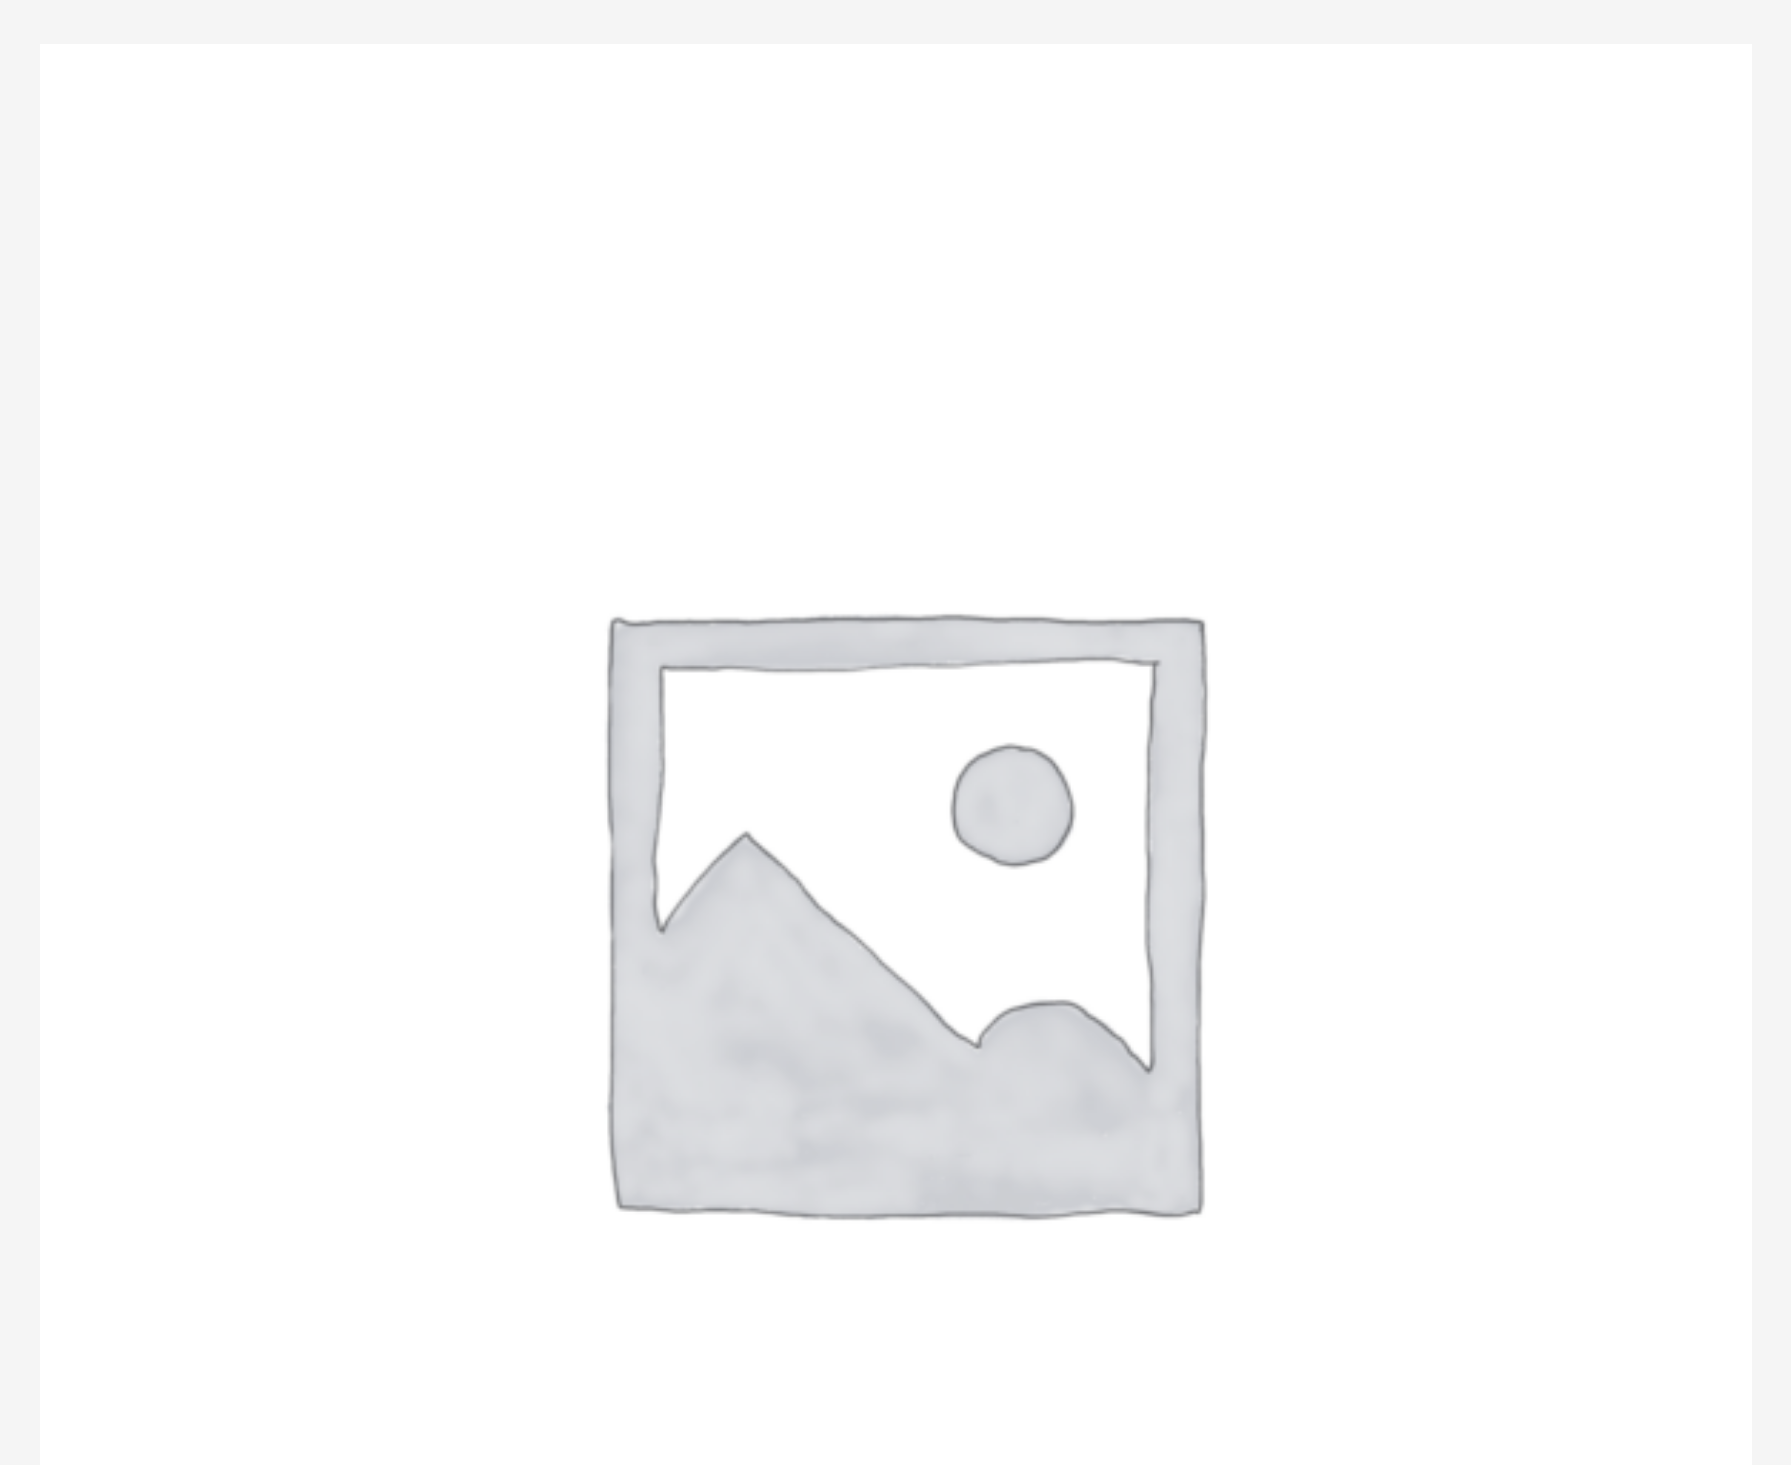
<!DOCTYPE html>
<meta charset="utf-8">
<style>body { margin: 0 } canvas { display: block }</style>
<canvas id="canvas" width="1791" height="1465"></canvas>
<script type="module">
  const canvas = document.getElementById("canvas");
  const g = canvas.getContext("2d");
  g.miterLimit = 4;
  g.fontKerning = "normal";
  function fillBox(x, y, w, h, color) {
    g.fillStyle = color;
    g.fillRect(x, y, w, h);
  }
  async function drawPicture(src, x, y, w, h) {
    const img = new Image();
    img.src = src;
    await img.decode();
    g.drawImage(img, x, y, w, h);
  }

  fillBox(0, 0, 1791, 1465, "#F5F5F5");
  await drawPicture("pic1.png", 40, 44, 1712, 1421);
</script>
